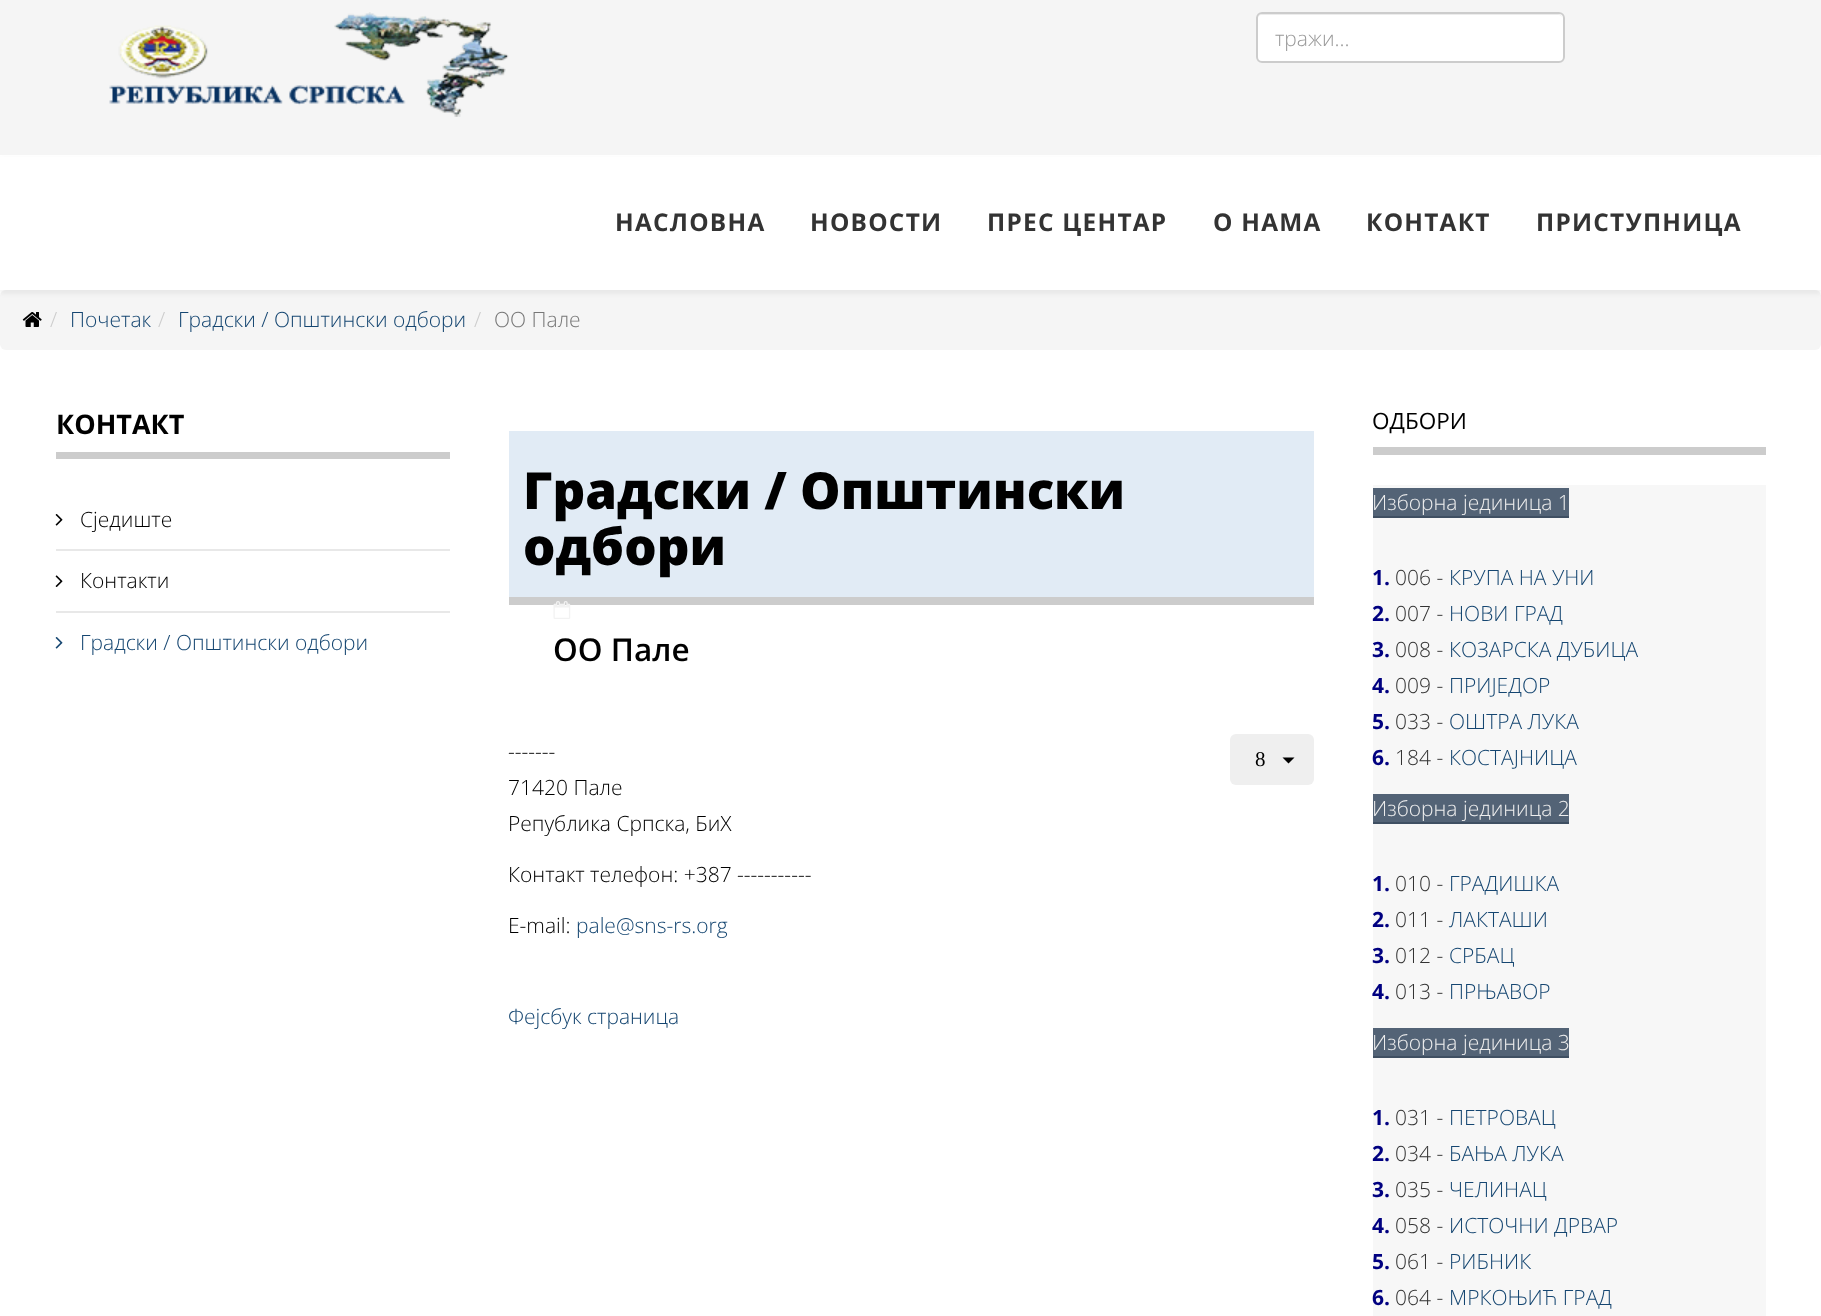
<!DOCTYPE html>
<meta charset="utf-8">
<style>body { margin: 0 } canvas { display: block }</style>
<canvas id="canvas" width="1821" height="1316"></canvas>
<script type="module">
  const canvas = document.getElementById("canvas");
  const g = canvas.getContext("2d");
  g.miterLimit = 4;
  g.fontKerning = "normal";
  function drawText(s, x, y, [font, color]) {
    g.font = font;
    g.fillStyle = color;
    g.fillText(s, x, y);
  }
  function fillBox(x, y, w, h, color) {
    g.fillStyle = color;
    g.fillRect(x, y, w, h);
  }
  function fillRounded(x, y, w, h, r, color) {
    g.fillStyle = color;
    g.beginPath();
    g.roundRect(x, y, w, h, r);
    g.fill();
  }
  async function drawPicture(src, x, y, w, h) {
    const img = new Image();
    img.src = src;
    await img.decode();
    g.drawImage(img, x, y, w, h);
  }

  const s1 = ["300 21px Open Sans", "#999999"];
  const s2 = ["bold 24.4px Open Sans", "#333333"];
  const s3 = ["300 21px Open Sans", "#CCCCCC"];
  const s4 = ["300 21px Open Sans", "#154671"];
  const s5 = ["300 21px Open Sans", "#777777"];
  const s6 = ["bold 27px Open Sans", "#000000"];
  const s7 = ["300 21px Open Sans", "#000000"];
  const s8 = ["800 51px Open Sans", "#000000"];
  const s9 = ["600 31.5px Open Sans", "#000000"];
  const s10 = ["21px Liberation Serif", "#000000"];
  const s11 = ["22.5px Open Sans", "#000000"];
  const s12 = ["300 21px Open Sans", "#EEEEEE"];
  const s13 = ["bold 21px Open Sans", "#000080"];
  const s14 = ["300 21px Open Sans", "#333333"];

  fillBox(0, 0, 1821, 1316, "#FFFFFF");
  fillBox(0, 0, 1821, 155, "#F5F5F5");
  await drawPicture("pic1.png", 109, 12, 400, 105);
  fillRounded(1256, 12, 309, 51, 6, "#FFFFFF");
  g.fillStyle = "#ECECEC";
  g.beginPath();
  g.moveTo(1262, 15);
  g.lineTo(1558, 15);
  g.bezierCurveTo(1561, 15, 1563, 17, 1563, 20);
  g.bezierCurveTo(1563, 17, 1561, 14, 1558, 14);
  g.lineTo(1262, 14);
  g.bezierCurveTo(1259, 14, 1257, 17, 1257, 20);
  g.bezierCurveTo(1257, 17, 1259, 15, 1262, 15);
  g.closePath();
  g.fill();
  g.beginPath();
  g.roundRect(1257, 13, 307, 49, 5);
  g.strokeStyle = "#CCCCCC";
  g.lineWidth = 2;
  g.stroke();
  drawText("тражи...", 1275, 46, s1);
  fillRounded(0, 290, 1821, 60, 6, "#F5F5F5");
  g.fillStyle = "rgba(0, 0, 0, 0.05)";
  g.filter = "blur(2px)";
  g.beginPath();
  g.rect(0, 159, 1821, 135);
  g.fill();
  g.filter = "none";
  fillBox(0, 157, 1821, 133, "#FFFFFF");
  g.letterSpacing = "1.25px";
  drawText("НАСЛОВНА", 615, 231, s2);
  drawText("НОВОСТИ", 810, 231, s2);
  drawText("ПРЕС ЦЕНТАР", 987, 231, s2);
  drawText("О НАМА", 1213, 231, s2);
  drawText("КОНТАКТ", 1366, 231, s2);
  drawText("ПРИСТУПНИЦА", 1536, 231, s2);
  await drawPicture("pic2.png", 22, 312, 20, 15);
  g.letterSpacing = "0px";
  drawText("/", 50, 327, s3);
  drawText("Почетак", 70, 327, s4);
  drawText("/", 158, 327, s3);
  drawText("Градски / Општински одбори", 178, 327, s4);
  drawText("/", 474, 327, s3);
  drawText("ОО Пале", 494, 327, s5);
  fillBox(56, 452, 394, 7, "#CCCCCC");
  drawText("КОНТАКТ", 56, 434, s6);
  fillBox(56, 549, 394, 2, "#E8E8E8");
  await drawPicture("pic3.png", 55, 514, 8, 12);
  drawText("Сједиште", 80, 527, s7);
  fillBox(56, 611, 394, 2, "#E8E8E8");
  await drawPicture("pic4.png", 55, 575, 8, 12);
  drawText("Контакти", 80, 588, s7);
  await drawPicture("pic5.png", 55, 637, 8, 12);
  drawText("Градски / Општински одбори", 80, 650, s4);
  fillBox(509, 431, 805, 166, "#E1EBF5");
  fillBox(509, 597, 805, 8, "#CCCCCC");
  drawText("Градски / Општински", 523, 509, s8);
  drawText("одбори", 523, 565, s8);
  await drawPicture("pic6.png", 553, 601, 18, 18);
  drawText("ОО Пале", 553, 661, s9);
  drawText("-------", 508, 759, s7);
  drawText("71420 Пале", 508, 795, s7);
  drawText("Република Српска, БиХ", 508, 831, s7);
  drawText("Контакт телефон: +387 -----------", 508, 882, s7);
  drawText("E-mail:", 508, 933, s7);
  drawText("pale@sns-rs.org", 576, 933, s4);
  drawText("Фејсбук страница", 508, 1024, s4);
  fillRounded(1230, 734, 84, 51, 6, "#EFEFEF");
  drawText("8", 1255, 766, s10);
  g.beginPath();
  g.moveTo(1282.5, 757.5);
  g.lineTo(1294.5, 757.5);
  g.lineTo(1288.5, 763.5);
  g.closePath();
  g.fill();
  fillBox(1373, 447, 393, 8, "#CCCCCC");
  drawText("ОДБОРИ", 1372, 429, s11);
  fillBox(1373, 485, 393, 831, "#F7F7F7");
  fillBox(1373, 488, 196, 28, "#536376");
  drawText("Изборна јединица 1", 1372, 510, s12);
  fillBox(1373, 516, 196, 2, "#3F4F62");
  drawText("1.", 1372, 585, s13);
  drawText("006 -", 1395, 585, s14);
  drawText("КРУПА НА УНИ", 1449, 585, s4);
  drawText("2.", 1372, 621, s13);
  drawText("007 -", 1395, 621, s14);
  drawText("НОВИ ГРАД", 1449, 621, s4);
  drawText("3.", 1372, 657, s13);
  drawText("008 -", 1395, 657, s14);
  drawText("КОЗАРСКА ДУБИЦА", 1449, 657, s4);
  drawText("4.", 1372, 693, s13);
  drawText("009 -", 1395, 693, s14);
  drawText("ПРИЈЕДОР", 1449, 693, s4);
  drawText("5.", 1372, 729, s13);
  drawText("033 -", 1395, 729, s14);
  drawText("ОШТРА ЛУКА", 1449, 729, s4);
  drawText("6.", 1372, 765, s13);
  drawText("184 -", 1395, 765, s14);
  drawText("КОСТАЈНИЦА", 1449, 765, s4);
  fillBox(1373, 794, 196, 28, "#536376");
  drawText("Изборна јединица 2", 1372, 816, s12);
  fillBox(1373, 822, 196, 2, "#3F4F62");
  drawText("1.", 1372, 891, s13);
  drawText("010 -", 1395, 891, s14);
  drawText("ГРАДИШКА", 1449, 891, s4);
  drawText("2.", 1372, 927, s13);
  drawText("011 -", 1395, 927, s14);
  drawText("ЛАКТАШИ", 1449, 927, s4);
  drawText("3.", 1372, 963, s13);
  drawText("012 -", 1395, 963, s14);
  drawText("СРБАЦ", 1449, 963, s4);
  drawText("4.", 1372, 999, s13);
  drawText("013 -", 1395, 999, s14);
  drawText("ПРЊАВОР", 1449, 999, s4);
  fillBox(1373, 1028, 196, 28, "#536376");
  drawText("Изборна јединица 3", 1372, 1050, s12);
  fillBox(1373, 1056, 196, 2, "#3F4F62");
  drawText("1.", 1372, 1125, s13);
  drawText("031 -", 1395, 1125, s14);
  drawText("ПЕТРОВАЦ", 1449, 1125, s4);
  drawText("2.", 1372, 1161, s13);
  drawText("034 -", 1395, 1161, s14);
  drawText("БАЊА ЛУКА", 1449, 1161, s4);
  drawText("3.", 1372, 1197, s13);
  drawText("035 -", 1395, 1197, s14);
  drawText("ЧЕЛИНАЦ", 1449, 1197, s4);
  drawText("4.", 1372, 1233, s13);
  drawText("058 -", 1395, 1233, s14);
  drawText("ИСТОЧНИ ДРВАР", 1449, 1233, s4);
  drawText("5.", 1372, 1269, s13);
  drawText("061 -", 1395, 1269, s14);
  drawText("РИБНИК", 1449, 1269, s4);
  drawText("6.", 1372, 1305, s13);
  drawText("064 -", 1395, 1305, s14);
  drawText("МРКОЊИЋ ГРАД", 1449, 1305, s4);
</script>
